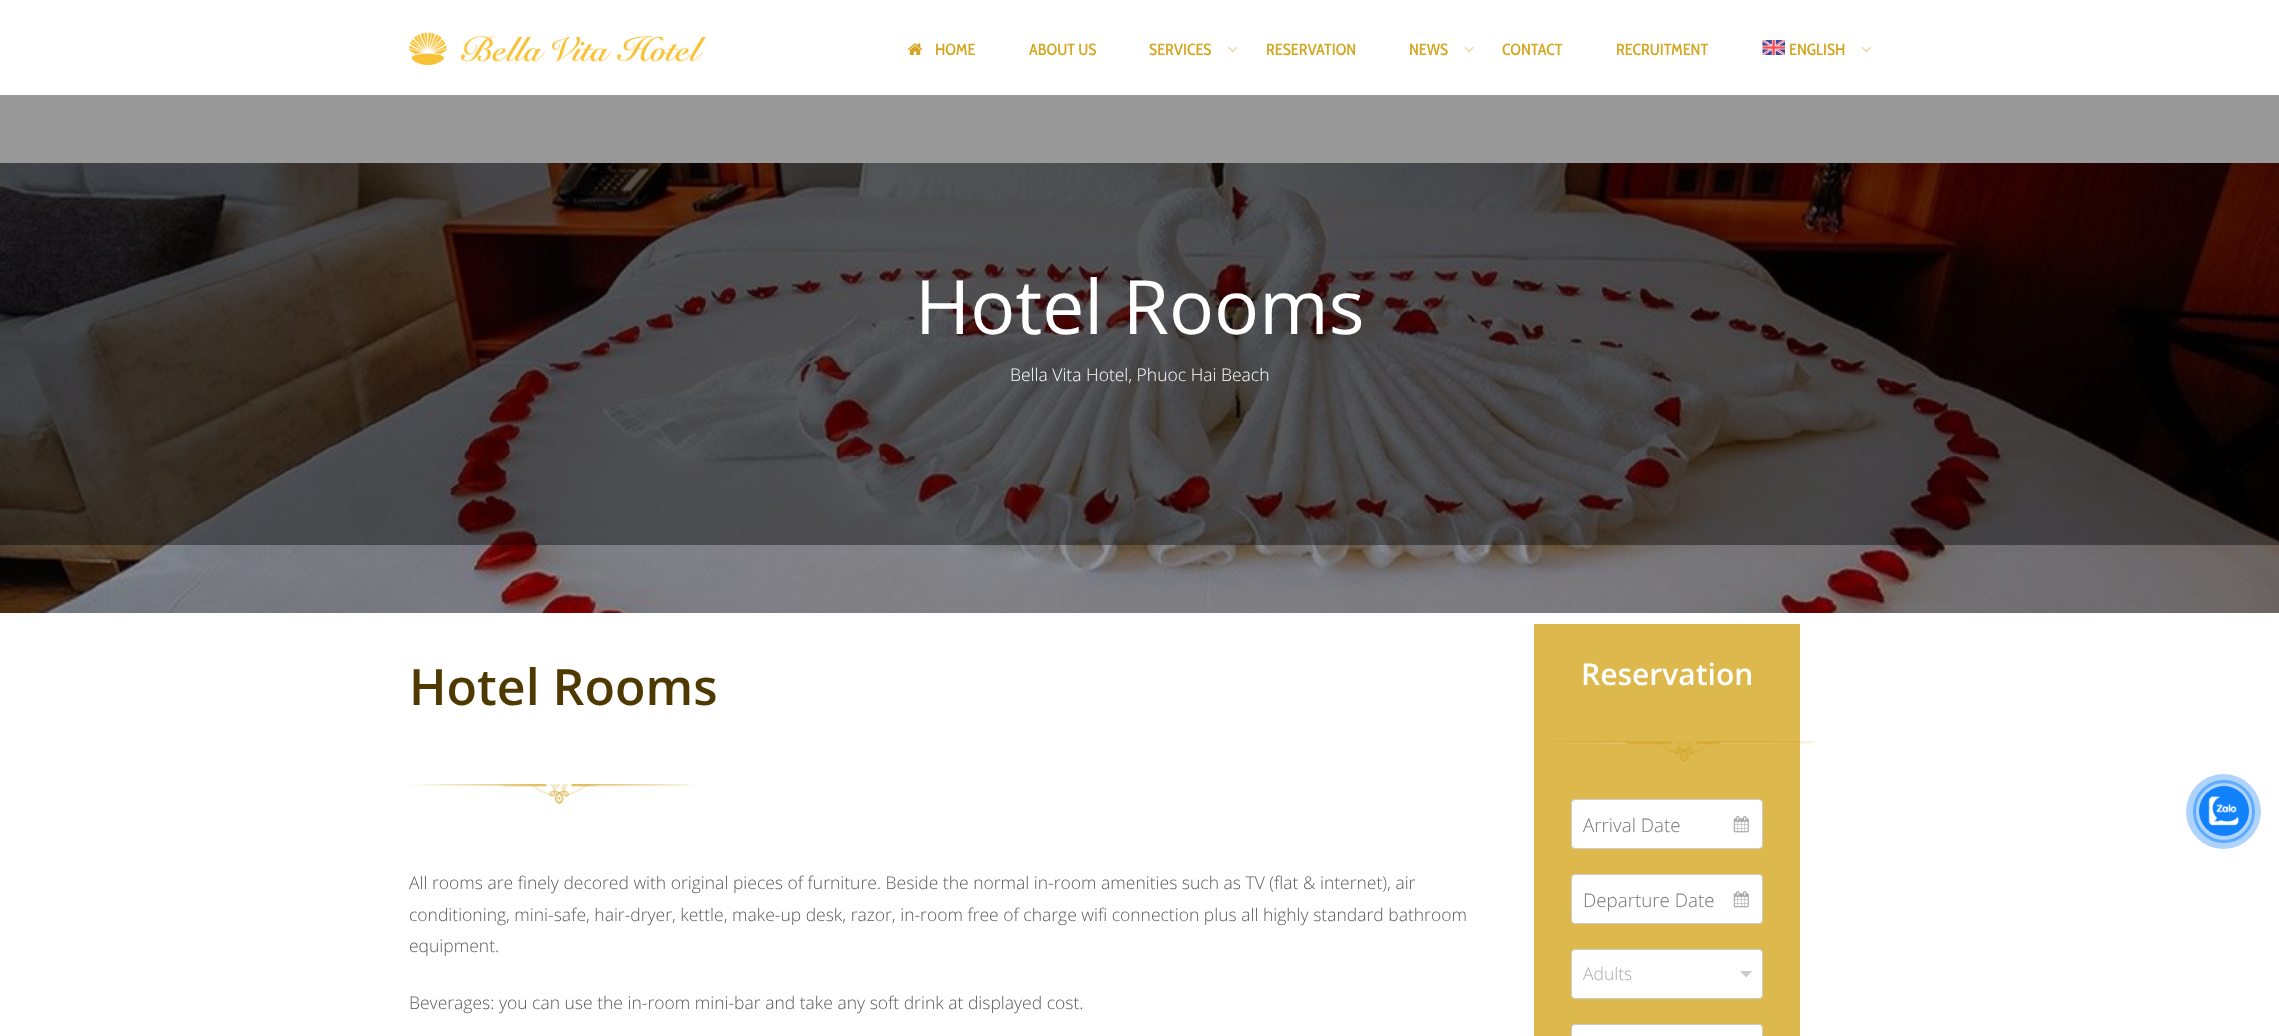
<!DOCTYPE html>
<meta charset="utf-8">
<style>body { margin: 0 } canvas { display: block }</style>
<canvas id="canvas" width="2279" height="1036"></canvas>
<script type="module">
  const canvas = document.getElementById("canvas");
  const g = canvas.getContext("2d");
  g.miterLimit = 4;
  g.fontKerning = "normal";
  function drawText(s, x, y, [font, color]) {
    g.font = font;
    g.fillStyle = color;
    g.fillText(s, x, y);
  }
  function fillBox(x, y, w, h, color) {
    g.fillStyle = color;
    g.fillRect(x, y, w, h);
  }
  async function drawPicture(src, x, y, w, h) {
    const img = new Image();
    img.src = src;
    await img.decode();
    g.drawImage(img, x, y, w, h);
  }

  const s1 = ["500 16.25px Cabin Condensed", "#D5A621"];
  const s2 = ["75px Open Sans", "#FFFFFF"];
  const s3 = ["300 17.5px Open Sans", "#FFFFFF"];
  const s4 = ["600 50px Open Sans", "#4E3900"];
  const s5 = ["300 17.5px Open Sans", "#5A5A5A"];
  const s6 = ["600 30px Open Sans", "#FFFFFF"];
  const s7 = ["300 18.75px Open Sans", "#757575"];
  const s8 = ["300 17.5px Open Sans", "#AAAAAA"];

  fillBox(0, 0, 2279, 1036, "#FFFFFF");
  await drawPicture("pic1.png", 408, 32, 298, 33);
  await drawPicture("pic2.png", 907, 43, 16, 12);
  drawText("HOME", 935, 55, s1);
  drawText("ABOUT US", 1029, 55, s1);
  drawText("SERVICES", 1149, 55, s1);
  await drawPicture("pic3.png", 1228, 47, 10, 6);
  drawText("RESERVATION", 1266, 55, s1);
  drawText("NEWS", 1409, 55, s1);
  await drawPicture("pic4.png", 1464, 47, 10, 6);
  drawText("CONTACT", 1502, 55, s1);
  drawText("RECRUITMENT", 1616, 55, s1);
  await drawPicture("pic5.png", 1762, 40, 23, 15);
  drawText("ENGLISH", 1789, 55, s1);
  await drawPicture("pic6.png", 1862, 47, 9, 6);
  await drawPicture("pic10.png", 0, 163, 2279, 450);
  fillBox(0, 95, 2279, 450, "rgba(0, 0, 0, 0.4)");
  drawText("Hotel Rooms", 915, 334, s2);
  drawText("Bella Vita Hotel, Phuoc Hai Beach", 1010, 381, s3);
  drawText("Hotel Rooms", 409, 705, s4);
  await drawPicture("pic7.png", 409, 784, 285, 20);
  drawText("All rooms are finely decored with original pieces of furniture. Beside the normal in-room amenities such as TV (flat & internet), air", 409, 889, s5);
  drawText("conditioning, mini-safe, hair-dryer, kettle, make-up desk, razor, in-room free of charge wifi connection plus all highly standard bathroom", 409, 921, s5);
  drawText("equipment.", 409, 952, s5);
  drawText("Beverages: you can use the in-room mini-bar and take any soft drink at displayed cost.", 409, 1009, s5);
  fillBox(1534, 624, 266, 412, "#DDB84D");
  drawText("Reservation", 1581, 685, s6);
  await drawPicture("pic8.png", 1540, 741, 277, 20);
  g.beginPath();
  g.roundRect(1571.5, 799.5, 191, 49, 3.5);
  g.fill();
  g.strokeStyle = "#CCCCCC";
  g.stroke();
  drawText("Arrival Date", 1583, 832, s7);
  await drawPicture("pic9.png", 1733, 816, 16, 17);
  g.fillStyle = "#FFFFFF";
  g.beginPath();
  g.roundRect(1571.5, 874.5, 191, 49, 3.5);
  g.fill();
  g.stroke();
  drawText("Departure Date", 1583, 907, s7);
  await drawPicture("pic9.png", 1733, 891, 16, 17);
  g.fillStyle = "#FFFFFF";
  g.beginPath();
  g.roundRect(1571.5, 949.5, 191, 49, 3.5);
  g.fill();
  g.stroke();
  drawText("Adults", 1583, 980, s8);
  g.fillStyle = "#CCCCCC";
  g.beginPath();
  g.moveTo(1740, 971);
  g.lineTo(1752.5, 971);
  g.lineTo(1746, 977.5);
  g.closePath();
  g.fill();
  g.fillStyle = "#FFFFFF";
  g.beginPath();
  g.roundRect(1571.5, 1024.5, 191, 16, 3.5);
  g.fill();
  g.stroke();
  g.beginPath();
  g.roundRect(2194.5, 781.5, 59, 60, 29.5);
  g.strokeStyle = "#88C1FE";
  g.lineWidth = 3;
  g.stroke();
  g.fillStyle = "rgba(17, 130, 252, 0.34)";
  g.beginPath();
  g.arc(2223.5, 811.5, 37.5, 0, Math.PI * 2);
  g.fill();
  g.fillStyle = "#1182FC";
  g.beginPath();
  g.arc(2224, 811, 25, 0, Math.PI * 2);
  g.fill();
  await drawPicture("pic11.png", 2208, 796, 31, 30);
</script>
